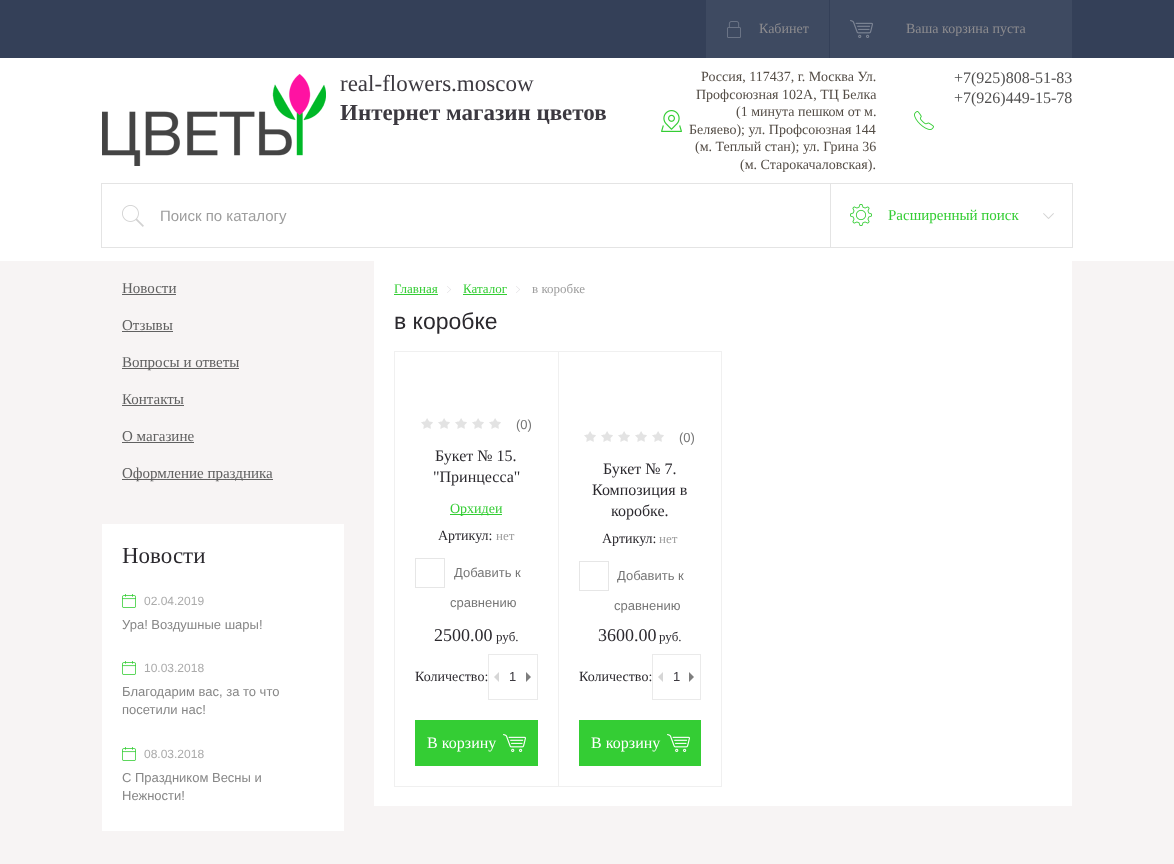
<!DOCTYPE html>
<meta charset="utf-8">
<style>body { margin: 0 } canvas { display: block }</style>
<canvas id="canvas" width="1174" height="864"></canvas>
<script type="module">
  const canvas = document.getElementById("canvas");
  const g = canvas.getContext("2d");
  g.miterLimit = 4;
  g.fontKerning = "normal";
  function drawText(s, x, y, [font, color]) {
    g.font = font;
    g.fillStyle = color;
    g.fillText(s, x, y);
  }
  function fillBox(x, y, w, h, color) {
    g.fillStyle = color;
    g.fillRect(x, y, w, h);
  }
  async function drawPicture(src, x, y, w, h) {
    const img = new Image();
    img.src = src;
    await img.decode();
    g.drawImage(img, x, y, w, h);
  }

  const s1 = ["14px Liberation Serif", "#8D8C8F"];
  const s2 = ["23px Liberation Serif", "#3C3940"];
  const s3 = ["bold 23px Liberation Serif", "#3C3940"];
  const s4 = ["14px Liberation Serif", "#544D46"];
  const s5 = ["16px Liberation Serif", "#504F4F"];
  const s6 = ["15px Liberation Sans", "#9D9D9D"];
  const s7 = ["15px Liberation Serif", "#34CD34"];
  const s8 = ["15px Liberation Serif", "#616161"];
  const s9 = ["23px Liberation Serif", "#2B292E"];
  const s10 = ["12px Liberation Sans", "#AAAAAA"];
  const s11 = ["13px Liberation Sans", "#868686"];
  const s12 = ["13px Liberation Serif", "#34CD34"];
  const s13 = ["13px Liberation Serif", "#9D9D9D"];
  const s14 = ["23px Liberation Sans", "#2B292E"];
  const s15 = ["13px Liberation Sans", "#767676"];
  const s16 = ["16px Liberation Serif", "#2B292E"];
  const s17 = ["14px Liberation Serif", "#34CD34"];
  const s18 = ["14px Liberation Serif", "#2B292E"];
  const s19 = ["18px Liberation Serif", "#2B292E"];
  const s20 = ["13px Liberation Serif", "#2B292E"];
  const s21 = ["13px Liberation Sans", "#3C3940"];
  const s22 = ["16px Liberation Serif", "#FFFFFF"];

  fillBox(0, 0, 1174, 864, "#F7F4F4");
  fillBox(0, 0, 1174, 58, "#344058");
  fillBox(706, 0, 123, 58, "#3E4A61");
  await drawPicture("pic1.png", 727, 21, 14, 17);
  drawText("Кабинет", 759, 33, s1);
  fillBox(830, 0, 242, 58, "#3E4A61");
  await drawPicture("pic2.png", 850, 20, 23, 18);
  drawText("Ваша корзина пуста", 906, 33, s1);
  fillBox(0, 58, 1174, 203, "#FFFFFF");
  await drawPicture("pic3.png", 102, 74, 224, 92);
  drawText("real-flowers.moscow", 340, 91, s2);
  drawText("Интернет магазин цветов", 340, 120, s3);
  await drawPicture("pic4.png", 661, 110, 21, 22);
  drawText("Россия, 117437, г. Москва Ул.", 701, 81, s4);
  drawText("Профсоюзная 102А, ТЦ Белка", 696, 99, s4);
  drawText("(1 минута пешком от м.", 736, 116, s4);
  drawText("Беляево); ул. Профсоюзная 144", 689, 134, s4);
  drawText("(м. Теплый стан); ул. Грина 36", 695, 151, s4);
  drawText("(м. Старокачаловская).", 740, 169, s4);
  drawText("+7(925)808-51-83", 954, 83, s5);
  drawText("+7(926)449-15-78", 954, 103, s5);
  await drawPicture("pic5.png", 914, 111, 20, 19);
  g.strokeStyle = "#E4E4E4";
  g.strokeRect(101.5, 183.5, 971, 64);
  await drawPicture("pic6.png", 122, 205, 22, 22);
  drawText("Поиск по каталогу", 160, 221, s6);
  fillBox(830, 183, 1, 64, "#E4E4E4");
  await drawPicture("pic7.png", 850, 204, 22, 22);
  drawText("Расширенный поиск", 888, 220, s7);
  await drawPicture("pic8.png", 1043, 213, 11, 6);
  drawText("Новости", 122, 293, s8);
  fillBox(122, 294, 54, 1, "#616161");
  drawText("Отзывы", 122, 330, s8);
  fillBox(122, 331, 51, 1, "#616161");
  fillBox(122, 368, 117, 1, "#616161");
  drawText("Вопросы и ответы", 122, 367, s8);
  drawText("Контакты", 122, 404, s8);
  fillBox(122, 405, 62, 1, "#616161");
  drawText("О магазине", 122, 441, s8);
  fillBox(122, 442, 72, 1, "#616161");
  fillBox(122, 479, 151, 1, "#616161");
  drawText("Оформление праздника", 122, 478, s8);
  fillBox(102, 524, 242, 307, "#FFFFFF");
  drawText("Новости", 122, 563, s9);
  await drawPicture("pic9.png", 122, 594, 14, 14);
  drawText("02.04.2019", 144, 605, s10);
  drawText("Ура! Воздушные шары!", 122, 629, s11);
  await drawPicture("pic9.png", 122, 661, 14, 14);
  drawText("10.03.2018", 144, 672, s10);
  drawText("Благодарим вас, за то что", 122, 696, s11);
  drawText("посетили нас!", 122, 714, s11);
  await drawPicture("pic9.png", 122, 747, 14, 14);
  drawText("08.03.2018", 144, 758, s10);
  drawText("С Праздником Весны и", 122, 782, s11);
  drawText("Нежности!", 122, 800, s11);
  fillBox(374, 261, 698, 545, "#FFFFFF");
  drawText("Главная", 394, 293, s12);
  fillBox(394, 294, 44, 1, "#34CD34");
  await drawPicture("pic10.png", 447, 286, 4, 7);
  drawText("Каталог", 463, 293, s12);
  fillBox(463, 294, 44, 1, "#34CD34");
  await drawPicture("pic10.png", 516, 286, 4, 7);
  drawText("в коробке", 532, 293, s13);
  drawText("в коробке", 394, 329, s14);
  g.strokeStyle = "#F0F0F0";
  g.strokeRect(394.5, 351.5, 164, 435);
  await drawPicture("pic11.png", 421, 418, 80, 11);
  drawText("(0)", 516, 429, s15);
  drawText("Букет № 15.", 435, 461, s16);
  drawText("\"Принцесса\"", 433, 482, s16);
  fillBox(450, 514, 52, 1, "#34CD34");
  drawText("Орхидеи", 450, 513, s17);
  drawText("Артикул:", 438, 540, s18);
  drawText("нет", 496, 540, s13);
  g.strokeStyle = "#E6E6E6";
  g.strokeRect(415.5, 558.5, 29, 29);
  drawText("Добавить к", 454, 577, s15);
  drawText("сравнению", 450, 607, s15);
  drawText("2500.00", 434, 641, s19);
  drawText("руб.", 496, 641, s20);
  drawText("Количество:", 415, 681, s18);
  g.strokeStyle = "#EAEAEA";
  g.strokeRect(488.5, 654.5, 49, 45);
  g.fillStyle = "#D6D6D6";
  g.beginPath();
  g.moveTo(499, 672);
  g.lineTo(499, 682);
  g.lineTo(494, 677);
  g.closePath();
  g.fill();
  drawText("1", 509, 681, s21);
  g.fillStyle = "#7E7E7E";
  g.beginPath();
  g.moveTo(526, 682);
  g.lineTo(526, 672);
  g.lineTo(531, 677);
  g.closePath();
  g.fill();
  fillBox(415, 720, 123, 46, "#34CD34");
  drawText("В корзину", 427, 748, s22);
  await drawPicture("pic12.png", 503, 734, 23, 18);
  g.strokeStyle = "#F0F0F0";
  g.strokeRect(558.5, 351.5, 163, 435);
  await drawPicture("pic11.png", 584, 431, 80, 11);
  drawText("(0)", 679, 442, s15);
  drawText("Букет № 7.", 603, 474, s16);
  drawText("Композиция в", 592, 495, s16);
  drawText("коробке.", 611, 516, s16);
  drawText("Артикул:", 602, 543, s18);
  drawText("нет", 659, 543, s13);
  g.strokeStyle = "#E6E6E6";
  g.strokeRect(579.5, 561.5, 29, 29);
  drawText("Добавить к", 617, 580, s15);
  drawText("сравнению", 614, 610, s15);
  drawText("3600.00", 598, 641, s19);
  drawText("руб.", 659, 641, s20);
  drawText("Количество:", 579, 681, s18);
  g.strokeStyle = "#EAEAEA";
  g.strokeRect(652.5, 654.5, 48, 45);
  g.fillStyle = "#D6D6D6";
  g.beginPath();
  g.moveTo(663, 672);
  g.lineTo(663, 682);
  g.lineTo(658, 677);
  g.closePath();
  g.fill();
  drawText("1", 673, 681, s21);
  g.fillStyle = "#7E7E7E";
  g.beginPath();
  g.moveTo(689, 682);
  g.lineTo(689, 672);
  g.lineTo(694, 677);
  g.closePath();
  g.fill();
  fillBox(579, 720, 122, 46, "#34CD34");
  drawText("В корзину", 591, 748, s22);
  await drawPicture("pic12.png", 667, 734, 23, 18);
</script>
